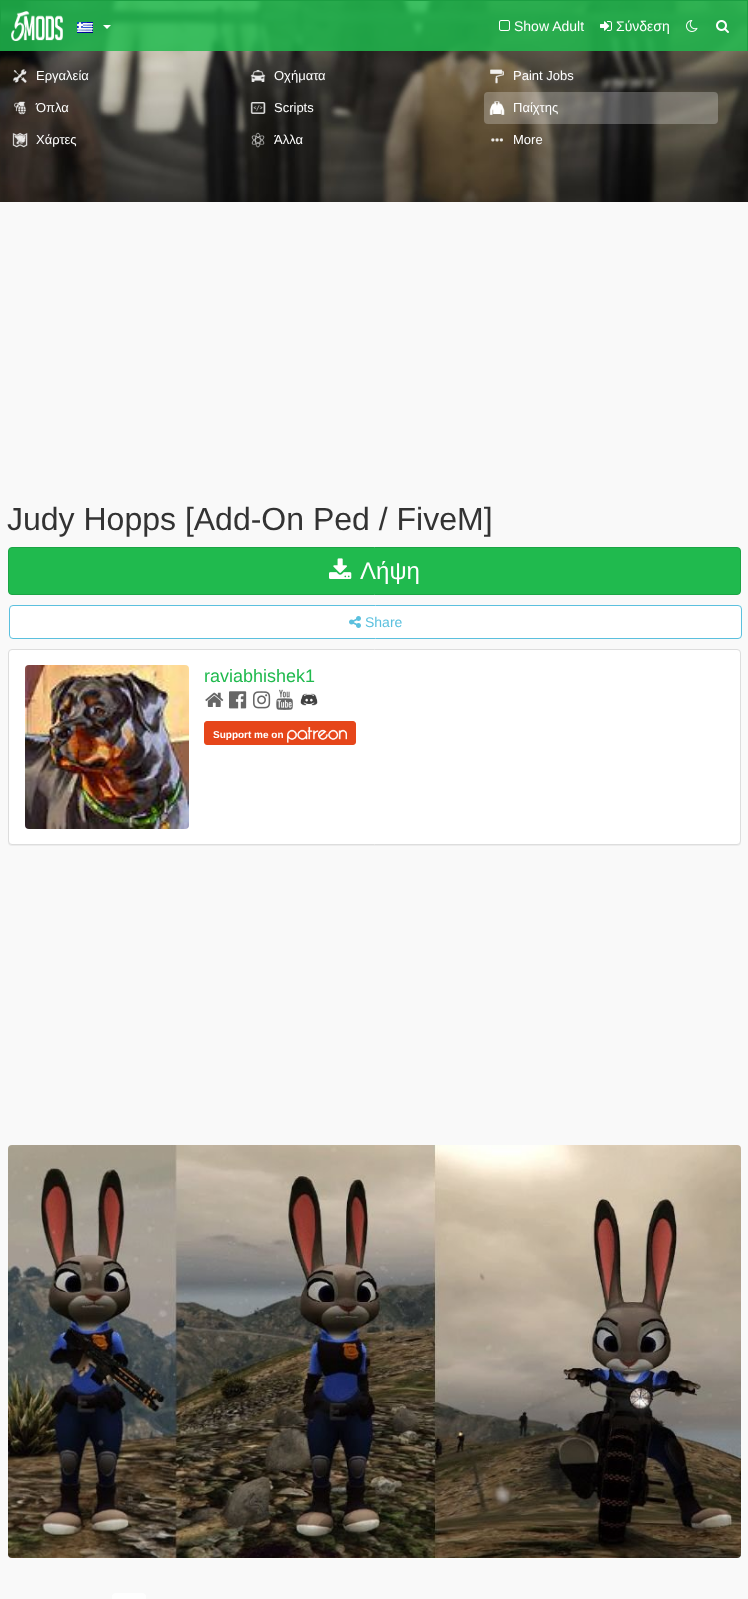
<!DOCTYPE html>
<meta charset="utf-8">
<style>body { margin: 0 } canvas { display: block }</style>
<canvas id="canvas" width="748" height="1599"></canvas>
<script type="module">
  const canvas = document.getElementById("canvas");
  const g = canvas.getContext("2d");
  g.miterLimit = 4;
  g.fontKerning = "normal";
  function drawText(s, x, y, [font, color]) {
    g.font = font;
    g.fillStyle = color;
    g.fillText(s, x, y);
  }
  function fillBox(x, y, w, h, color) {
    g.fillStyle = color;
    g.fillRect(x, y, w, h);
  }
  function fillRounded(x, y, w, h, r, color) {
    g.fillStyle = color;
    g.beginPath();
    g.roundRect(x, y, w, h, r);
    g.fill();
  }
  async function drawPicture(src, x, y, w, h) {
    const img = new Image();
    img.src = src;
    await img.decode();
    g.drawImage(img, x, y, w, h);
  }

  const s1 = ["14px Liberation Sans", "#FFFFFF"];
  const s2 = ["13px Liberation Sans", "#FFFFFF"];
  const s3 = ["32px Liberation Sans", "#333333"];
  const s4 = ["24px Liberation Sans", "#FFFFFF"];
  const s5 = ["14px Liberation Sans", "#5BC0DE"];
  const s6 = ["18px Liberation Sans", "#20BA4E"];
  const s7 = ["bold 10px Liberation Sans", "#FFFFFF"];

  fillBox(0, 0, 748, 1599, "#F9F9F9");
  await drawPicture("pic7.png", 0, 1, 748, 201);
  fillBox(1, 1, 746, 50, "rgba(32, 186, 78, 0.85)");
  fillBox(0, 0, 748, 1, "#1B9E42");
  fillBox(747, 0, 1, 51, "#1B9E42");
  fillBox(0, 0, 1, 51, "#1B9E42");
  await drawPicture("pic1.png", 11, 11, 52, 30);
  await drawPicture("pic2.png", 77, 22, 16, 11);
  g.fillStyle = "#FFFFFF";
  g.beginPath();
  g.moveTo(103, 25);
  g.lineTo(111, 25);
  g.lineTo(107, 29);
  g.closePath();
  g.fill();
  await drawPicture("pic3.png", 499, 20, 11, 11);
  drawText("Show Adult", 514, 31, s1);
  await drawPicture("pic4.png", 600, 21, 12, 10);
  drawText("Σύνδεση", 616, 31, s1);
  await drawPicture("pic5.png", 686, 20, 12, 12);
  await drawPicture("pic6.png", 716, 20, 13, 13);
  await drawPicture("pic8.png", 13, 69, 14, 14);
  drawText("Εργαλεία", 36, 80, s2);
  await drawPicture("pic9.png", 250, 70, 16, 12);
  drawText("Οχήματα", 274, 80, s2);
  await drawPicture("pic10.png", 490, 69, 14, 15);
  drawText("Paint Jobs", 513, 80, s2);
  await drawPicture("pic11.png", 14, 101, 12, 14);
  drawText("Όπλα", 36, 112, s2);
  await drawPicture("pic12.png", 250, 102, 16, 12);
  drawText("Scripts", 274, 112, s2);
  fillRounded(484, 92, 234, 32, 4, "rgba(255, 255, 255, 0.25)");
  await drawPicture("pic13.png", 489, 101, 16, 14);
  drawText("Παίχτης", 513, 112, s2);
  await drawPicture("pic14.png", 12, 132, 16, 16);
  drawText("Χάρτες", 36, 144, s2);
  await drawPicture("pic15.png", 251, 132, 14, 16);
  drawText("Άλλα", 274, 144, s2);
  await drawPicture("pic16.png", 491, 138, 12, 4);
  drawText("More", 513, 144, s2);
  drawText("Judy Hopps [Add-On Ped / FiveM]", 7, 530, s3);
  g.fillStyle = "#20BA4E";
  g.beginPath();
  g.roundRect(8.5, 547.5, 732, 47, 3.5);
  g.fill();
  g.strokeStyle = "#1CA445";
  g.stroke();
  await drawPicture("pic17.png", 329, 558, 23, 21);
  drawText("Λήψη", 360, 579, s4);
  g.beginPath();
  g.roundRect(9.5, 605.5, 732, 33, 3.5);
  g.fill();
  g.strokeStyle = "#5BC0DE";
  g.stroke();
  await drawPicture("pic18.png", 349, 616, 12, 12);
  drawText("Share", 365, 627, s5);
  g.fillStyle = "rgba(0, 0, 0, 0.05)";
  g.filter = "blur(0.5px)";
  g.beginPath();
  g.roundRect(8, 650, 733, 196, 4);
  g.fill();
  g.filter = "none";
  g.fillStyle = "#FFFFFF";
  g.beginPath();
  g.roundRect(8.5, 649.5, 732, 195, 3.5);
  g.fill();
  g.strokeStyle = "#DDDDDD";
  g.stroke();
  await drawPicture("pic19.png", 25, 665, 164, 164);
  drawText("raviabhishek1", 204, 682, s6);
  await drawPicture("pic20.png", 205, 692, 19, 15);
  await drawPicture("pic21.png", 229, 691, 18, 18);
  await drawPicture("pic22.png", 253, 691, 18, 18);
  await drawPicture("pic23.png", 276, 689, 17, 21);
  await drawPicture("pic24.png", 300, 693, 18, 13);
  g.fillStyle = "#E6461A";
  g.beginPath();
  g.roundRect(204.5, 721.5, 151, 23, 2.5);
  g.fill();
  g.strokeStyle = "#E6461A";
  g.stroke();
  drawText("Support me on", 213, 738, s7);
  await drawPicture("pic25.png", 287, 727, 60, 16);
  await drawPicture("pic26.png", 8, 1145, 733, 413);
  await drawPicture("pic27.png", 112, 1593, 34, 6);
</script>
